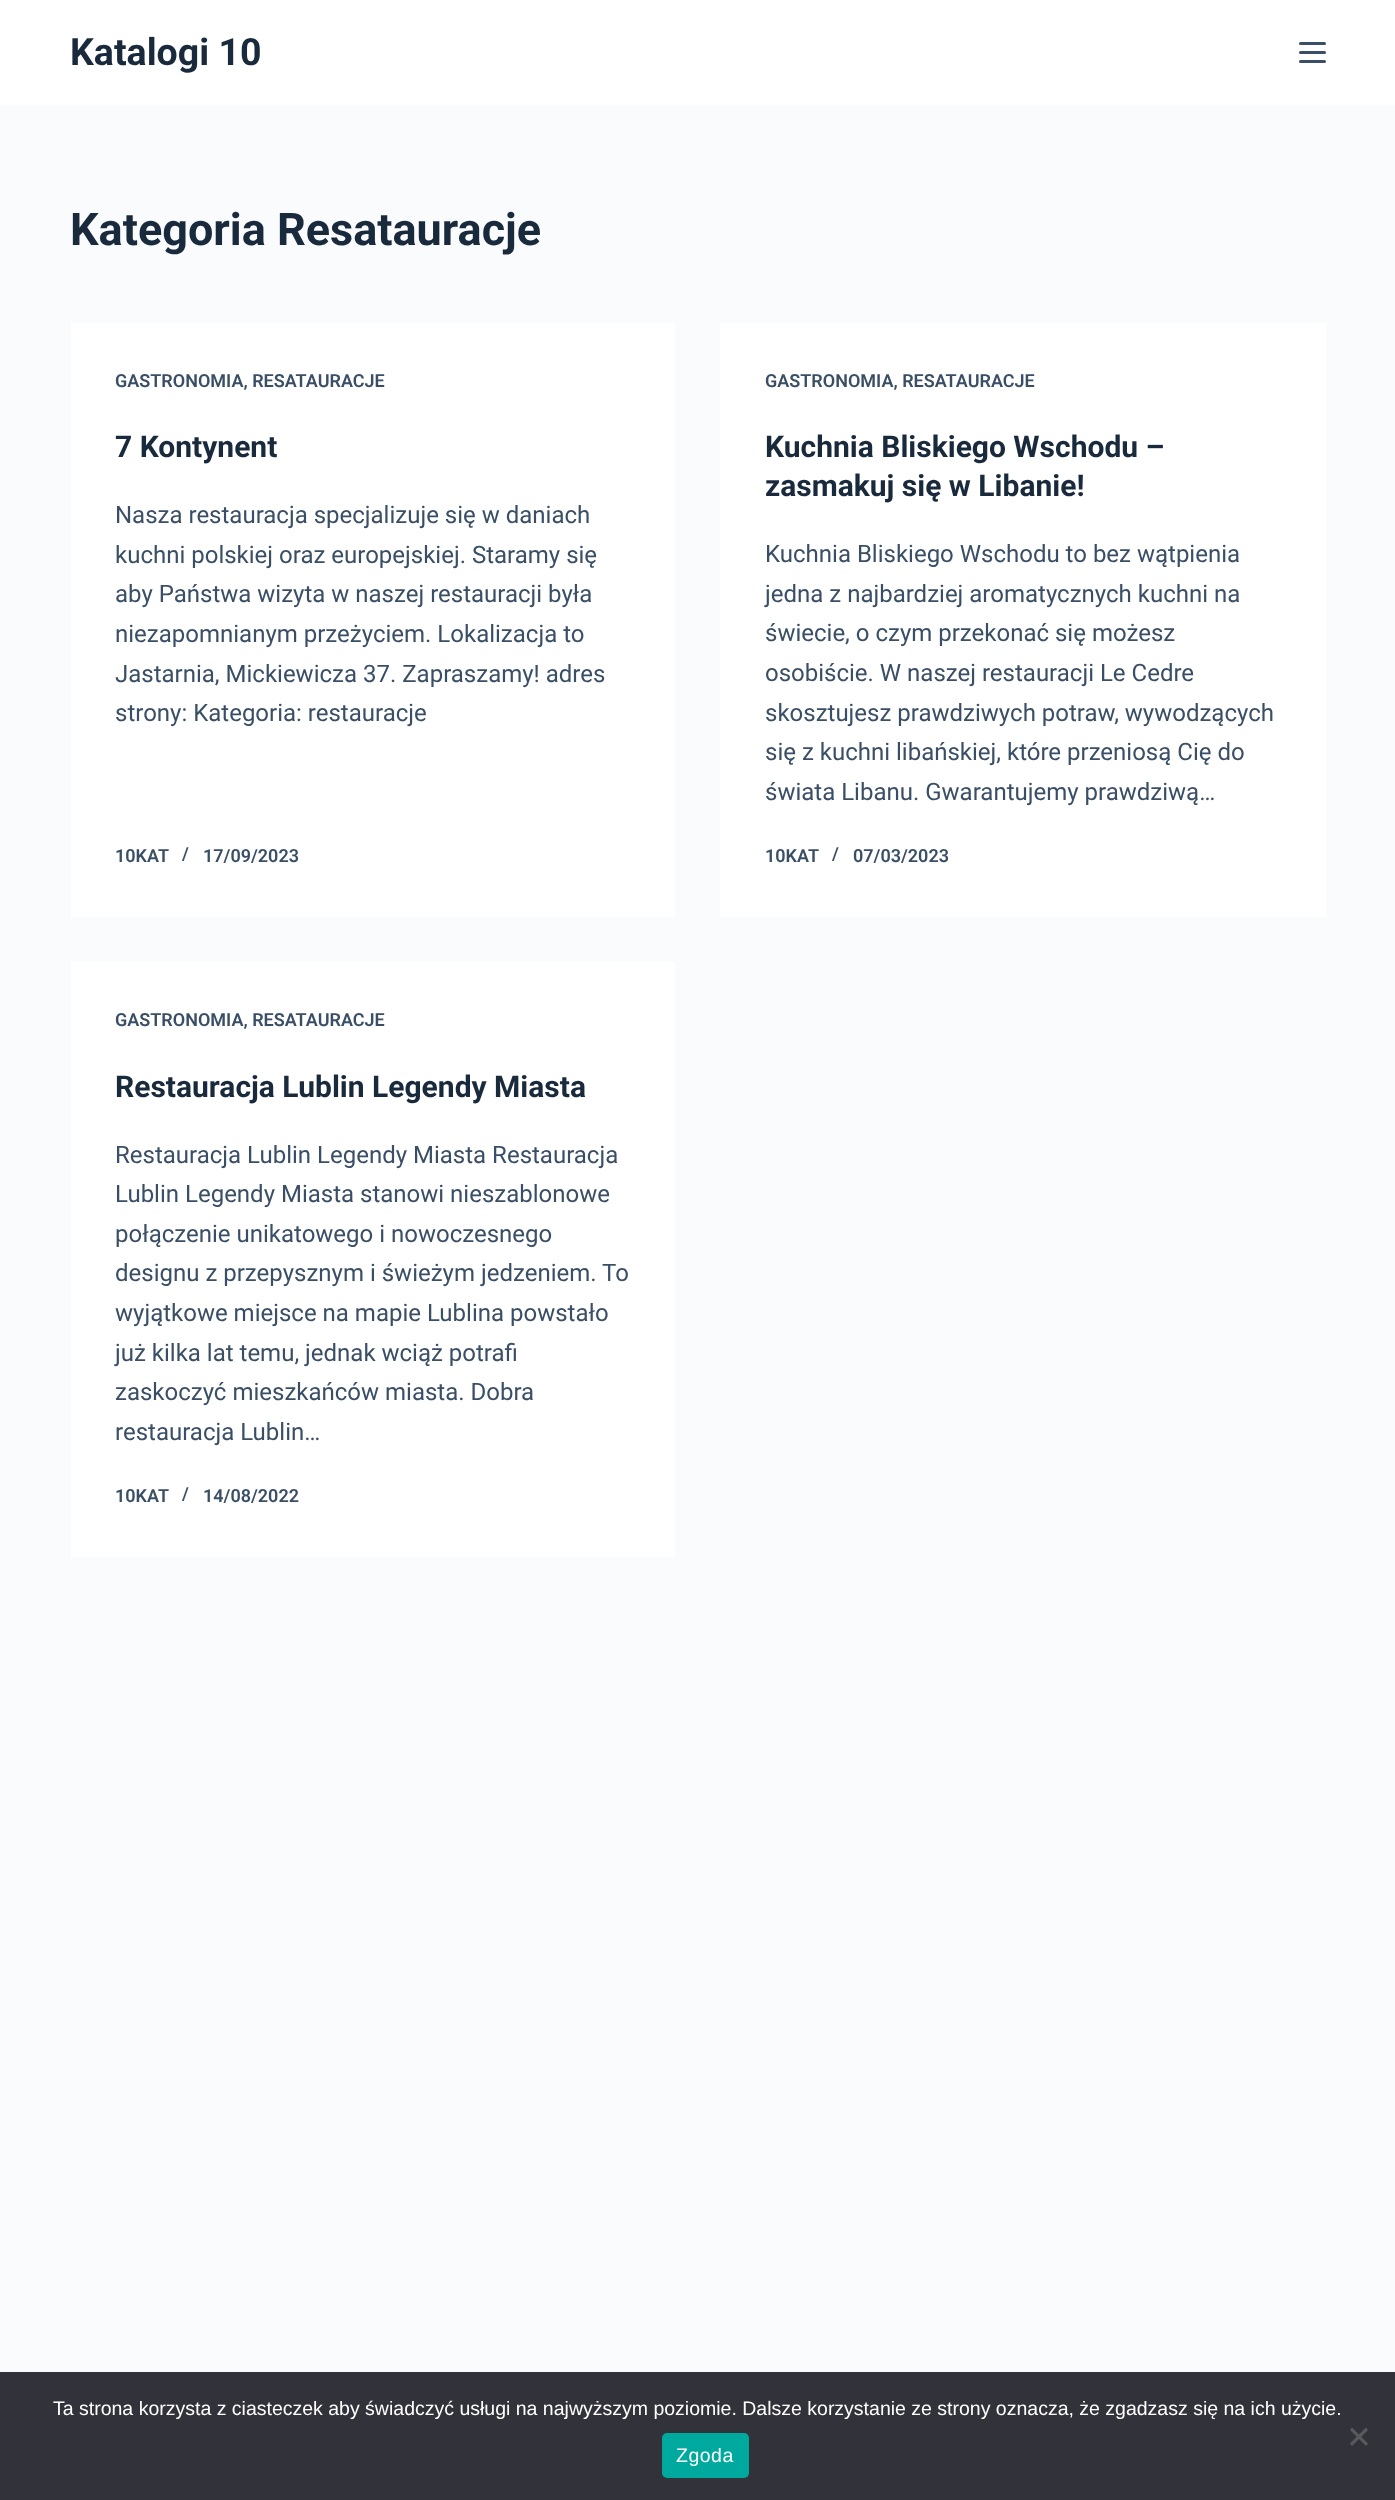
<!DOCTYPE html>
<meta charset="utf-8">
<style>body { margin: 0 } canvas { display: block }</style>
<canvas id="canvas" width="1395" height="2500"></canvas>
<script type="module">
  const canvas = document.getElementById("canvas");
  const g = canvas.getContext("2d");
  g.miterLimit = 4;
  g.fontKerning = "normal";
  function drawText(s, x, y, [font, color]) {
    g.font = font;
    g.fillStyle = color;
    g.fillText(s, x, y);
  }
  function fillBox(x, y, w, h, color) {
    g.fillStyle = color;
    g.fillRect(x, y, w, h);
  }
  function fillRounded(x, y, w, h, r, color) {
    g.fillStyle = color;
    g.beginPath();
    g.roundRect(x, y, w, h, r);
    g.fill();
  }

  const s1 = ["bold 37.5px Roboto", "#192A3D"];
  const s2 = ["bold 45px Roboto", "#192A3D"];
  const s3 = ["600 18px Roboto", "#3A4F66"];
  const s4 = ["bold 30px Roboto", "#192A3D"];
  const s5 = ["24px Roboto", "#3A4F66"];
  const s6 = ["19.5px Liberation Sans", "#FFFFFF"];

  fillBox(0, 0, 1395, 2500, "#FAFBFC");
  fillBox(0, 0, 1395, 105, "#FFFFFF");
  drawText("Katalogi 10", 70, 65, s1);
  fillRounded(1299, 42, 27, 3, 1.5, "#3A4F66");
  fillRounded(1299, 51, 27, 3, 1.5, "#3A4F66");
  fillRounded(1299, 60, 27, 3, 1.5, "#3A4F66");
  drawText("Kategoria Resatauracje", 70, 245, s2);
  fillBox(71, 323, 604, 594, "#FFFFFF");
  drawText("GASTRONOMIA, RESATAURACJE", 115, 387, s3);
  drawText("7 Kontynent", 115, 457, s4);
  drawText("Nasza restauracja specjalizuje się w daniach", 115, 523, s5);
  drawText("kuchni polskiej oraz europejskiej. Staramy się", 115, 563, s5);
  drawText("aby Państwa wizyta w naszej restauracji była", 115, 602, s5);
  drawText("niezapomnianym przeżyciem. Lokalizacja to", 115, 642, s5);
  drawText("Jastarnia, Mickiewicza 37. Zapraszamy! adres", 115, 682, s5);
  drawText("strony: Kategoria: restauracje", 115, 721, s5);
  drawText("10KAT", 115, 862, s3);
  drawText("/", 182, 860, s3);
  drawText("17/09/2023", 203, 862, s3);
  fillBox(720, 323, 606, 594, "#FFFFFF");
  drawText("GASTRONOMIA, RESATAURACJE", 765, 387, s3);
  drawText("Kuchnia Bliskiego Wschodu –", 765, 457, s4);
  drawText("zasmakuj się w Libanie!", 765, 496, s4);
  drawText("Kuchnia Bliskiego Wschodu to bez wątpienia", 765, 562, s5);
  drawText("jedna z najbardziej aromatycznych kuchni na", 765, 602, s5);
  drawText("świecie, o czym przekonać się możesz", 765, 641, s5);
  drawText("osobiście. W naszej restauracji Le Cedre", 765, 681, s5);
  drawText("skosztujesz prawdziwych potraw, wywodzących", 765, 721, s5);
  drawText("się z kuchni libańskiej, które przeniosą Cię do", 765, 760, s5);
  drawText("świata Libanu. Gwarantujemy prawdziwą…", 765, 800, s5);
  drawText("10KAT", 765, 862, s3);
  drawText("/", 832, 860, s3);
  drawText("07/03/2023", 853, 862, s3);
  fillBox(71, 962, 604, 595, "#FFFFFF");
  drawText("GASTRONOMIA, RESATAURACJE", 115, 1026, s3);
  drawText("Restauracja Lublin Legendy Miasta", 115, 1097, s4);
  drawText("Restauracja Lublin Legendy Miasta Restauracja", 115, 1163, s5);
  drawText("Lublin Legendy Miasta stanowi nieszablonowe", 115, 1202, s5);
  drawText("połączenie unikatowego i nowoczesnego", 115, 1242, s5);
  drawText("designu z przepysznym i świeżym jedzeniem. To", 115, 1281, s5);
  drawText("wyjątkowe miejsce na mapie Lublina powstało", 115, 1321, s5);
  drawText("już kilka lat temu, jednak wciąż potrafi", 115, 1361, s5);
  drawText("zaskoczyć mieszkańców miasta. Dobra", 115, 1400, s5);
  drawText("restauracja Lublin…", 115, 1440, s5);
  drawText("10KAT", 115, 1502, s3);
  drawText("/", 182, 1500, s3);
  drawText("14/08/2022", 203, 1502, s3);
  fillBox(0, 2372, 1395, 128, "#32323A");
  drawText("Ta strona korzysta z ciasteczek aby świadczyć usługi na najwyższym poziomie. Dalsze korzystanie ze strony oznacza, że zgadzasz się na ich użycie.", 53, 2415, s6);
  g.fillStyle = "#59595D";
  g.beginPath();
  g.moveTo(1366, 2427.5);
  g.lineTo(1368, 2430);
  g.lineTo(1352, 2446);
  g.lineTo(1350, 2443.5);
  g.closePath();
  g.fill();
  g.beginPath();
  g.moveTo(1350, 2430);
  g.lineTo(1352, 2427.5);
  g.lineTo(1368, 2443.5);
  g.lineTo(1366, 2446);
  g.closePath();
  g.fill();
  fillRounded(662, 2433, 87, 45, 5, "#00A99D");
  g.letterSpacing = "0.5px";
  drawText("Zgoda", 676, 2462, s6);
</script>
